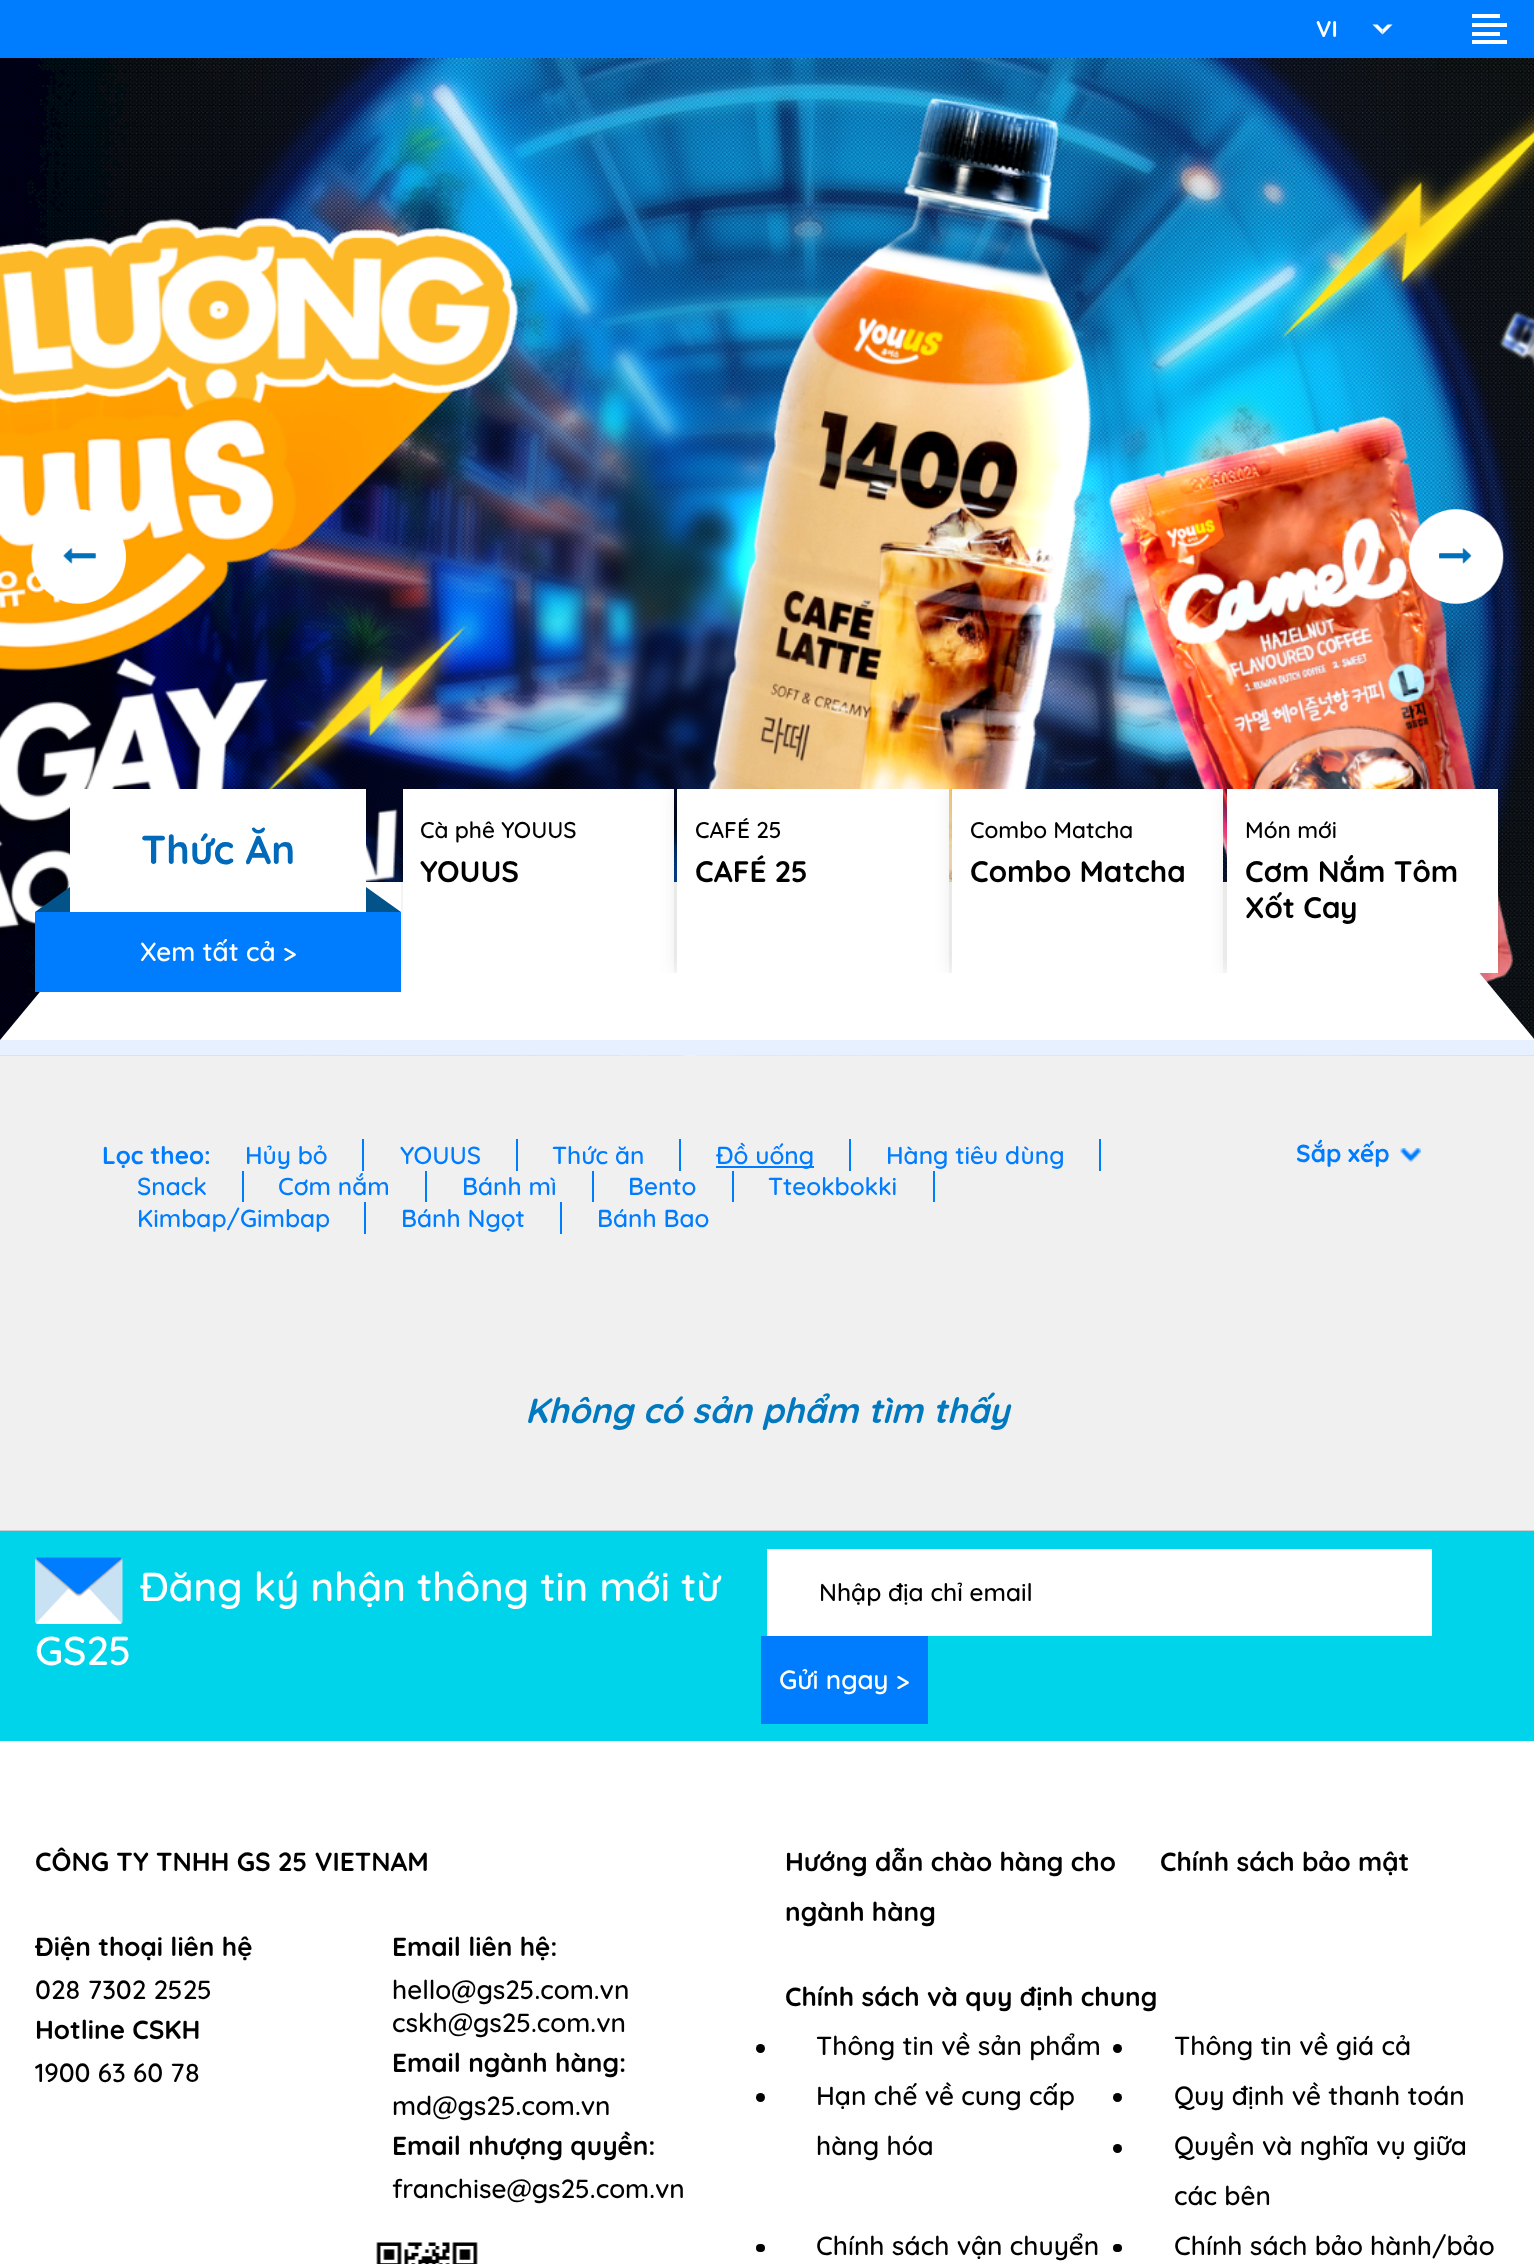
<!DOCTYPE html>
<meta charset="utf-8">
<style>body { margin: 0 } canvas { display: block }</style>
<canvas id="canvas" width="1534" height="2264"></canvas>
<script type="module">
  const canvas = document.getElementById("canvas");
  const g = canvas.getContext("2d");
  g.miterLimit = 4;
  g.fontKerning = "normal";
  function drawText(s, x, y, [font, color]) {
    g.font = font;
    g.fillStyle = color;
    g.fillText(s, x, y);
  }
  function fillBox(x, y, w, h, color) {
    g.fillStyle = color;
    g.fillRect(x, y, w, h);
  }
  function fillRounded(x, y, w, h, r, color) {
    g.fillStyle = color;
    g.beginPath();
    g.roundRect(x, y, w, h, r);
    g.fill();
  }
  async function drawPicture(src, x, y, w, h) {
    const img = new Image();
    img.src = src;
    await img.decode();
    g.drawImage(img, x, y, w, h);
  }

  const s1 = ["bold 22.75px Quicksand", "#FFFFFF"];
  const s2 = ["bold 40.25px Quicksand", "#0069B9"];
  const s3 = ["500 26.25px Quicksand", "#FFFFFF"];
  const s4 = ["500 22.75px Quicksand", "#000000"];
  const s5 = ["bold 29.75px Quicksand", "#000000"];
  const s6 = ["bold 24.5px Quicksand", "#007CFF"];
  const s7 = ["500 24.5px Quicksand", "#007CFF"];
  const s8 = ["italic bold 35px Quicksand", "#0079C1"];
  const s9 = ["500 40.25px Quicksand", "#FFFFFF"];
  const s10 = ["500 24.5px Quicksand", "#000000"];
  const s11 = ["bold 26.25px Quicksand", "#000000"];
  const s12 = ["500 26.25px Quicksand", "#000000"];

  fillBox(0, 0, 1534, 2264, "#F0F0F0");
  fillBox(0, 0, 1534, 58, "#007CFF");
  drawText("VI", 1316, 37, s1);
  g.beginPath();
  g.moveTo(1392.5, 24.5);
  g.lineTo(1382.5, 34.5);
  g.lineTo(1382.5, 29.5);
  g.lineTo(1387.5, 24.5);
  g.closePath();
  g.fill();
  g.beginPath();
  g.moveTo(1382.5, 34.5);
  g.lineTo(1372.5, 24.5);
  g.lineTo(1377.5, 24.5);
  g.lineTo(1382.5, 29.5);
  g.closePath();
  g.fill();
  fillBox(1472, 23, 35, 4, "#FFFFFF");
  fillBox(1472, 14, 28, 4, "#FFFFFF");
  fillBox(1472, 32, 28, 4, "#FFFFFF");
  fillBox(1472, 40, 35, 4, "#FFFFFF");
  await drawPicture("pic1.png", 0, 58, 1534, 998);
  g.beginPath();
  g.moveTo(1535, 1040);
  g.lineTo(0, 1040);
  g.lineTo(131, 882);
  g.lineTo(1404, 882);
  g.closePath();
  g.fill();
  fillBox(0, 1040, 1534, 15, "#E6F0FF");
  await drawPicture("pic2.png", 31, 509, 95, 95);
  await drawPicture("pic3.png", 1408, 509, 96, 95);
  fillBox(70, 789, 296, 123, "#FFFFFF");
  drawText("Thức Ăn", 141, 864, s2);
  fillBox(35, 912, 366, 80, "#007CFF");
  g.fillStyle = "#01538A";
  g.beginPath();
  g.moveTo(70, 887);
  g.lineTo(70, 912);
  g.lineTo(35, 912);
  g.closePath();
  g.fill();
  g.beginPath();
  g.moveTo(366, 912);
  g.lineTo(366, 887);
  g.lineTo(401, 912);
  g.closePath();
  g.fill();
  drawText("Xem tất cả >", 140, 961, s3);
  g.save();
  g.beginPath();
  g.rect(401, 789, 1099, 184);
  g.clip();
  g.fillStyle = "rgba(0, 0, 0, 0.1)";
  g.filter = "blur(9px)";
  g.beginPath();
  g.rect(403, 789, 271, 184);
  g.fill();
  g.filter = "none";
  g.restore();
  fillBox(403, 789, 271, 184, "#FFFFFF");
  drawText("Cà phê YOUUS", 420, 838, s4);
  drawText("YOUUS", 420, 882, s5);
  g.save();
  g.beginPath();
  g.rect(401, 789, 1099, 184);
  g.clip();
  g.fillStyle = "rgba(0, 0, 0, 0.1)";
  g.filter = "blur(9px)";
  g.beginPath();
  g.rect(677, 789, 272, 184);
  g.fill();
  g.filter = "none";
  g.restore();
  fillBox(677, 789, 272, 184, "#FFFFFF");
  drawText("CAFÉ 25", 695, 838, s4);
  drawText("CAFÉ 25", 695, 882, s5);
  g.save();
  g.beginPath();
  g.rect(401, 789, 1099, 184);
  g.clip();
  g.fillStyle = "rgba(0, 0, 0, 0.1)";
  g.filter = "blur(9px)";
  g.beginPath();
  g.rect(952, 789, 271, 184);
  g.fill();
  g.filter = "none";
  g.restore();
  fillBox(952, 789, 271, 184, "#FFFFFF");
  drawText("Combo Matcha", 970, 838, s4);
  drawText("Combo Matcha", 970, 882, s5);
  g.save();
  g.beginPath();
  g.rect(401, 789, 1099, 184);
  g.clip();
  g.fillStyle = "rgba(0, 0, 0, 0.1)";
  g.filter = "blur(9px)";
  g.beginPath();
  g.rect(1227, 789, 271, 184);
  g.fill();
  g.filter = "none";
  g.restore();
  fillBox(1227, 789, 271, 184, "#FFFFFF");
  drawText("Món mới", 1245, 838, s4);
  drawText("Cơm Nắm Tôm", 1245, 882, s5);
  drawText("Xốt Cay", 1245, 918, s5);
  fillBox(0, 1530, 1534, 1, "#CDCDCD");
  drawText("Lọc theo:", 102, 1164, s6);
  fillBox(362, 1139, 2, 32, "#007CFF");
  drawText("Hủy bỏ", 245, 1164, s7);
  fillBox(516, 1139, 2, 32, "#007CFF");
  drawText("YOUUS", 400, 1164, s7);
  fillBox(679, 1139, 2, 32, "#007CFF");
  drawText("Thức ăn", 552, 1164, s7);
  fillBox(849, 1139, 2, 32, "#007CFF");
  fillBox(716, 1166, 98, 2, "#007CFF");
  drawText("Đồ uống", 716, 1164, s7);
  fillBox(1099, 1139, 2, 32, "#007CFF");
  drawText("Hàng tiêu dùng", 886, 1164, s7);
  fillBox(242, 1171, 2, 31, "#007CFF");
  drawText("Snack", 137, 1195, s7);
  fillBox(425, 1171, 2, 31, "#007CFF");
  drawText("Cơm nắm", 278, 1195, s7);
  fillBox(592, 1171, 2, 31, "#007CFF");
  drawText("Bánh mì", 462, 1195, s7);
  fillBox(732, 1171, 2, 31, "#007CFF");
  drawText("Bento", 628, 1195, s7);
  fillBox(933, 1171, 2, 31, "#007CFF");
  drawText("Tteokbokki", 768, 1195, s7);
  fillBox(364, 1202, 2, 32, "#007CFF");
  drawText("Kimbap/Gimbap", 137, 1227, s7);
  fillBox(560, 1202, 2, 32, "#007CFF");
  drawText("Bánh Ngọt", 401, 1227, s7);
  drawText("Bánh Bao", 597, 1227, s7);
  drawText("Sắp xếp", 1296, 1162, s6);
  await drawPicture("pic4.png", 1400, 1148, 21, 14);
  drawText("Không có sản phẩm tìm thấy", 525, 1423, s8);
  fillBox(0, 1741, 1534, 523, "#FFFFFF");
  fillBox(0, 1531, 1534, 210, "#00D4EA");
  await drawPicture("pic5.png", 35, 1557, 88, 67);
  drawText("Đăng ký nhận thông tin mới từ", 140, 1601, s9);
  drawText("GS25", 35, 1665, s9);
  fillBox(767, 1549, 665, 87, "#FFFFFF");
  drawText("Nhập địa chỉ email", 819, 1601, s10);
  fillBox(761, 1636, 167, 88, "#007CFF");
  drawText("Gửi ngay >", 779, 1689, s3);
  drawText("CÔNG TY TNHH GS 25 VIETNAM", 35, 1871, s11);
  drawText("Điện thoại liên hệ", 35, 1956, s11);
  drawText("028 7302 2525", 35, 1999, s12);
  drawText("Hotline CSKH", 35, 2039, s11);
  drawText("1900 63 60 78", 35, 2082, s12);
  drawText("Email liên hệ:", 392, 1956, s11);
  drawText("hello@gs25.com.vn", 392, 1999, s12);
  drawText("cskh@gs25.com.vn", 392, 2032, s12);
  drawText("Email ngành hàng:", 392, 2072, s11);
  drawText("md@gs25.com.vn", 392, 2115, s12);
  drawText("Email nhượng quyền:", 392, 2155, s11);
  drawText("franchise@gs25.com.vn", 392, 2198, s12);
  await drawPicture("pic6.png", 376, 2242, 102, 22);
  drawText("Hướng dẫn chào hàng cho", 785, 1871, s11);
  drawText("ngành hàng", 785, 1921, s11);
  drawText("Chính sách bảo mật", 1160, 1871, s11);
  drawText("Chính sách và quy định chung", 785, 2006, s11);
  g.beginPath();
  g.arc(760.5, 2048.5, 4.5, 0, Math.PI * 2);
  g.fill();
  drawText("Thông tin về sản phẩm", 816, 2055, s12);
  g.beginPath();
  g.arc(1117.5, 2048.5, 4.5, 0, Math.PI * 2);
  g.fill();
  drawText("Thông tin về giá cả", 1174, 2055, s12);
  g.beginPath();
  g.arc(760.5, 2097.5, 4.5, 0, Math.PI * 2);
  g.fill();
  drawText("Hạn chế về cung cấp", 816, 2105, s12);
  drawText("hàng hóa", 816, 2155, s12);
  g.beginPath();
  g.arc(1117.5, 2097.5, 4.5, 0, Math.PI * 2);
  g.fill();
  drawText("Quy định về thanh toán", 1174, 2105, s12);
  g.beginPath();
  g.arc(1117.5, 2148.5, 4.5, 0, Math.PI * 2);
  g.fill();
  drawText("Quyền và nghĩa vụ giữa", 1174, 2155, s12);
  drawText("các bên", 1174, 2205, s12);
  fillRounded(756, 2244, 9, 8, 4, "#000000");
  drawText("Chính sách vận chuyển", 816, 2255, s12);
  fillRounded(1113, 2244, 9, 8, 4, "#000000");
  drawText("Chính sách bảo hành/bảo", 1174, 2255, s12);
</script>
